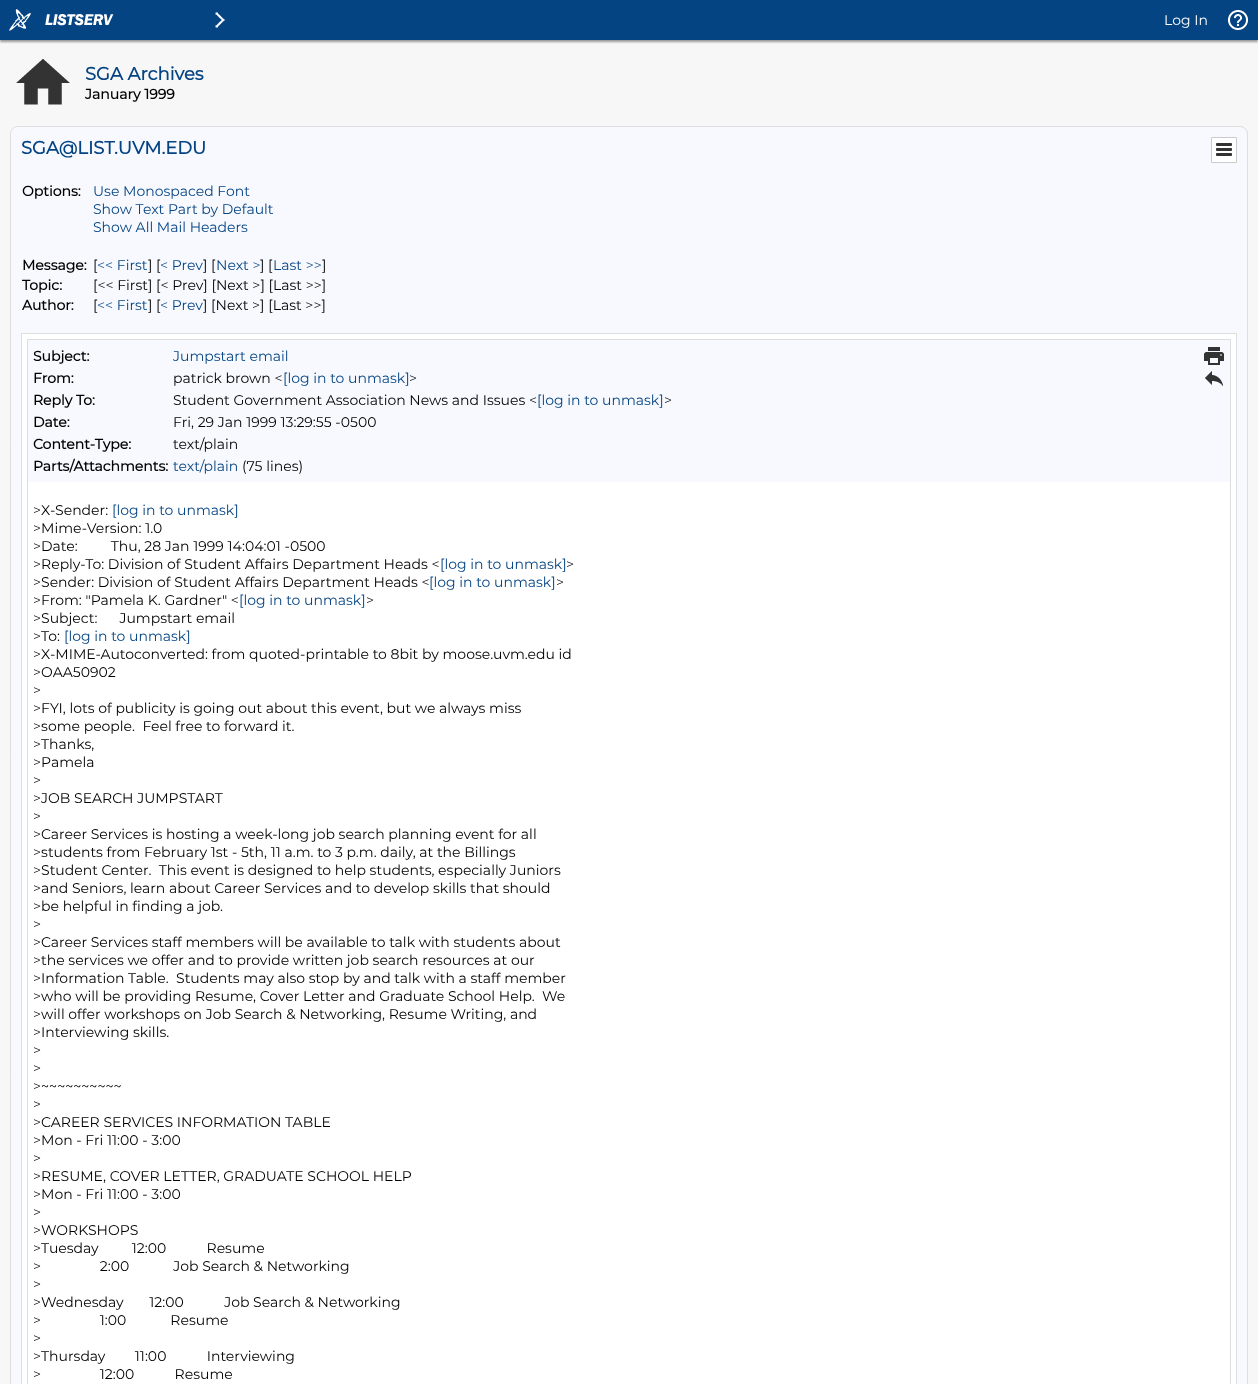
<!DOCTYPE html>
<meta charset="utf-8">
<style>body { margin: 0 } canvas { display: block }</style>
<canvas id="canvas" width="1258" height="1384"></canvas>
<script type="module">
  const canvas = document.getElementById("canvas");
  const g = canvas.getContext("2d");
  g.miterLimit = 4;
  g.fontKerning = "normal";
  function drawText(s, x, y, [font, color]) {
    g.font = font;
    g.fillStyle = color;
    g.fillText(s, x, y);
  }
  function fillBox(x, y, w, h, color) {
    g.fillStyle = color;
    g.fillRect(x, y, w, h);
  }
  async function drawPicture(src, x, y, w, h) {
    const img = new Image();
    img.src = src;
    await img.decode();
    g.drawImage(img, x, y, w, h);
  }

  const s1 = ["100 14px Montserrat", "#FFFFFF"];
  const s2 = ["bold 18px Montserrat", "#054483"];
  const s3 = ["bold 14px Montserrat", "#000000"];
  const s4 = ["100 14px Montserrat", "#054483"];
  const s5 = ["100 14px Montserrat", "#000000"];

  fillBox(0, 0, 1258, 1384, "#F7F7F7");
  g.fillStyle = "#999999";
  g.filter = "blur(1px)";
  g.beginPath();
  g.rect(0, 2, 1258, 40);
  g.fill();
  g.filter = "none";
  fillBox(0, 0, 1258, 40, "#054483");
  await drawPicture("pic1.png", 9, 9, 22, 22);
  await drawPicture("pic2.png", 45, 14, 69, 12);
  await drawPicture("pic3.png", 215, 12, 10, 16);
  drawText("Log In", 1164, 25, s1);
  await drawPicture("pic4.png", 1228, 10, 20, 20);
  await drawPicture("pic5.png", 16, 59, 54, 46);
  drawText("SGA Archives", 85, 80, s2);
  drawText("January 1999", 85, 99, s3);
  g.fillStyle = "#F7F9FE";
  g.beginPath();
  g.roundRect(10.5, 126.5, 1237, 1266, 7.5);
  g.fill();
  g.strokeStyle = "#DEDEDE";
  g.stroke();
  drawText("SGA@LIST.UVM.EDU", 21, 154, s2);
  g.fillStyle = "#FFFFFF";
  g.beginPath();
  g.rect(1211.5, 137.5, 25, 25);
  g.fill();
  g.strokeStyle = "#CCCCCC";
  g.stroke();
  await drawPicture("pic6.png", 1216, 143, 16, 13);
  drawText("Options:", 22, 196, s3);
  drawText("Use Monospaced Font", 93, 196, s4);
  drawText("Show Text Part by Default", 93, 214, s4);
  drawText("Show All Mail Headers", 93, 232, s4);
  drawText("Message:", 22, 270, s3);
  drawText("[", 93, 270, s5);
  drawText("<< First", 97, 270, s4);
  drawText("] [", 148, 270, s5);
  drawText("< Prev", 160, 270, s4);
  drawText("] [", 203, 270, s5);
  drawText("Next >", 216, 270, s4);
  drawText("] [", 260, 270, s5);
  drawText("Last >>", 273, 270, s4);
  drawText("]", 322, 270, s5);
  drawText("Topic:", 22, 290, s3);
  drawText("[<< First] [< Prev] [Next >] [Last >>]", 93, 290, s5);
  drawText("Author:", 22, 310, s3);
  drawText("[", 93, 310, s5);
  drawText("<< First", 97, 310, s4);
  drawText("] [", 148, 310, s5);
  drawText("< Prev", 160, 310, s4);
  drawText("] [Next >] [Last >>]", 203, 310, s5);
  g.strokeStyle = "#DEDEDE";
  g.strokeRect(21.5, 333.5, 1215, 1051);
  fillBox(22, 334, 1214, 1050, "#FFFFFF");
  g.strokeRect(27.5, 339.5, 1203, 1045);
  fillBox(28, 340, 1202, 142, "#F7F9FE");
  drawText("Subject:", 33, 361, s3);
  drawText("Jumpstart email", 173, 361, s4);
  drawText("From:", 33, 383, s3);
  drawText("patrick brown <", 173, 383, s5);
  drawText("[log in to unmask]", 283, 383, s4);
  drawText(">", 409, 383, s5);
  drawText("Reply To:", 33, 405, s3);
  drawText("Student Government Association News and Issues <", 173, 405, s5);
  drawText("[log in to unmask]", 537, 405, s4);
  drawText(">", 664, 405, s5);
  drawText("Date:", 33, 427, s3);
  drawText("Fri, 29 Jan 1999 13:29:55 -0500", 173, 427, s5);
  drawText("Content-Type:", 33, 449, s3);
  drawText("text/plain", 173, 449, s5);
  drawText("Parts/Attachments:", 33, 471, s3);
  drawText("text/plain", 173, 471, s4);
  drawText("(75 lines)", 242, 471, s5);
  await drawPicture("pic7.png", 1204, 347, 20, 18);
  await drawPicture("pic8.png", 1205, 371, 18, 15);
  drawText(">X-Sender:", 33, 515, s5);
  drawText("[log in to unmask]", 112, 515, s4);
  drawText(">Mime-Version: 1.0", 33, 533, s5);
  drawText(">Date:         Thu, 28 Jan 1999 14:04:01 -0500", 33, 551, s5);
  drawText(">Reply-To: Division of Student Affairs Department Heads <", 33, 569, s5);
  drawText("[log in to unmask]", 440, 569, s4);
  drawText(">", 566, 569, s5);
  drawText(">Sender: Division of Student Affairs Department Heads <", 33, 587, s5);
  drawText("[log in to unmask]", 429, 587, s4);
  drawText(">", 556, 587, s5);
  drawText(">From: \"Pamela K. Gardner\" <", 33, 605, s5);
  drawText("[log in to unmask]", 239, 605, s4);
  drawText(">", 366, 605, s5);
  drawText(">Subject:      Jumpstart email", 33, 623, s5);
  drawText(">To:", 33, 641, s5);
  drawText("[log in to unmask]", 64, 641, s4);
  drawText(">X-MIME-Autoconverted: from quoted-printable to 8bit by moose.uvm.edu id", 33, 659, s5);
  drawText(">OAA50902", 33, 677, s5);
  drawText(">", 33, 695, s5);
  drawText(">FYI, lots of publicity is going out about this event, but we always miss", 33, 713, s5);
  drawText(">some people.  Feel free to forward it.", 33, 731, s5);
  drawText(">Thanks,", 33, 749, s5);
  drawText(">Pamela", 33, 767, s5);
  drawText(">", 33, 785, s5);
  drawText(">JOB SEARCH JUMPSTART", 33, 803, s5);
  drawText(">", 33, 821, s5);
  drawText(">Career Services is hosting a week-long job search planning event for all", 33, 839, s5);
  drawText(">students from February 1st - 5th, 11 a.m. to 3 p.m. daily, at the Billings", 33, 857, s5);
  drawText(">Student Center.  This event is designed to help students, especially Juniors", 33, 875, s5);
  drawText(">and Seniors, learn about Career Services and to develop skills that should", 33, 893, s5);
  drawText(">be helpful in finding a job.", 33, 911, s5);
  drawText(">", 33, 929, s5);
  drawText(">Career Services staff members will be available to talk with students about", 33, 947, s5);
  drawText(">the services we offer and to provide written job search resources at our", 33, 965, s5);
  drawText(">Information Table.  Students may also stop by and talk with a staff member", 33, 983, s5);
  drawText(">who will be providing Resume, Cover Letter and Graduate School Help.  We", 33, 1001, s5);
  drawText(">will offer workshops on Job Search & Networking, Resume Writing, and", 33, 1019, s5);
  drawText(">Interviewing skills.", 33, 1037, s5);
  drawText(">", 33, 1055, s5);
  drawText(">", 33, 1073, s5);
  drawText(">~~~~~~~~~~", 33, 1091, s5);
  drawText(">", 33, 1109, s5);
  drawText(">CAREER SERVICES INFORMATION TABLE", 33, 1127, s5);
  drawText(">Mon - Fri 11:00 - 3:00", 33, 1145, s5);
  drawText(">", 33, 1163, s5);
  drawText(">RESUME, COVER LETTER, GRADUATE SCHOOL HELP", 33, 1181, s5);
  drawText(">Mon - Fri 11:00 - 3:00", 33, 1199, s5);
  drawText(">", 33, 1217, s5);
  drawText(">WORKSHOPS", 33, 1235, s5);
  drawText(">Tuesday         12:00           Resume", 33, 1253, s5);
  drawText(">                2:00            Job Search & Networking", 33, 1271, s5);
  drawText(">", 33, 1289, s5);
  drawText(">Wednesday       12:00           Job Search & Networking", 33, 1307, s5);
  drawText(">                1:00            Resume", 33, 1325, s5);
  drawText(">", 33, 1343, s5);
  drawText(">Thursday        11:00           Interviewing", 33, 1361, s5);
  drawText(">                12:00           Resume", 33, 1379, s5);
</script>
